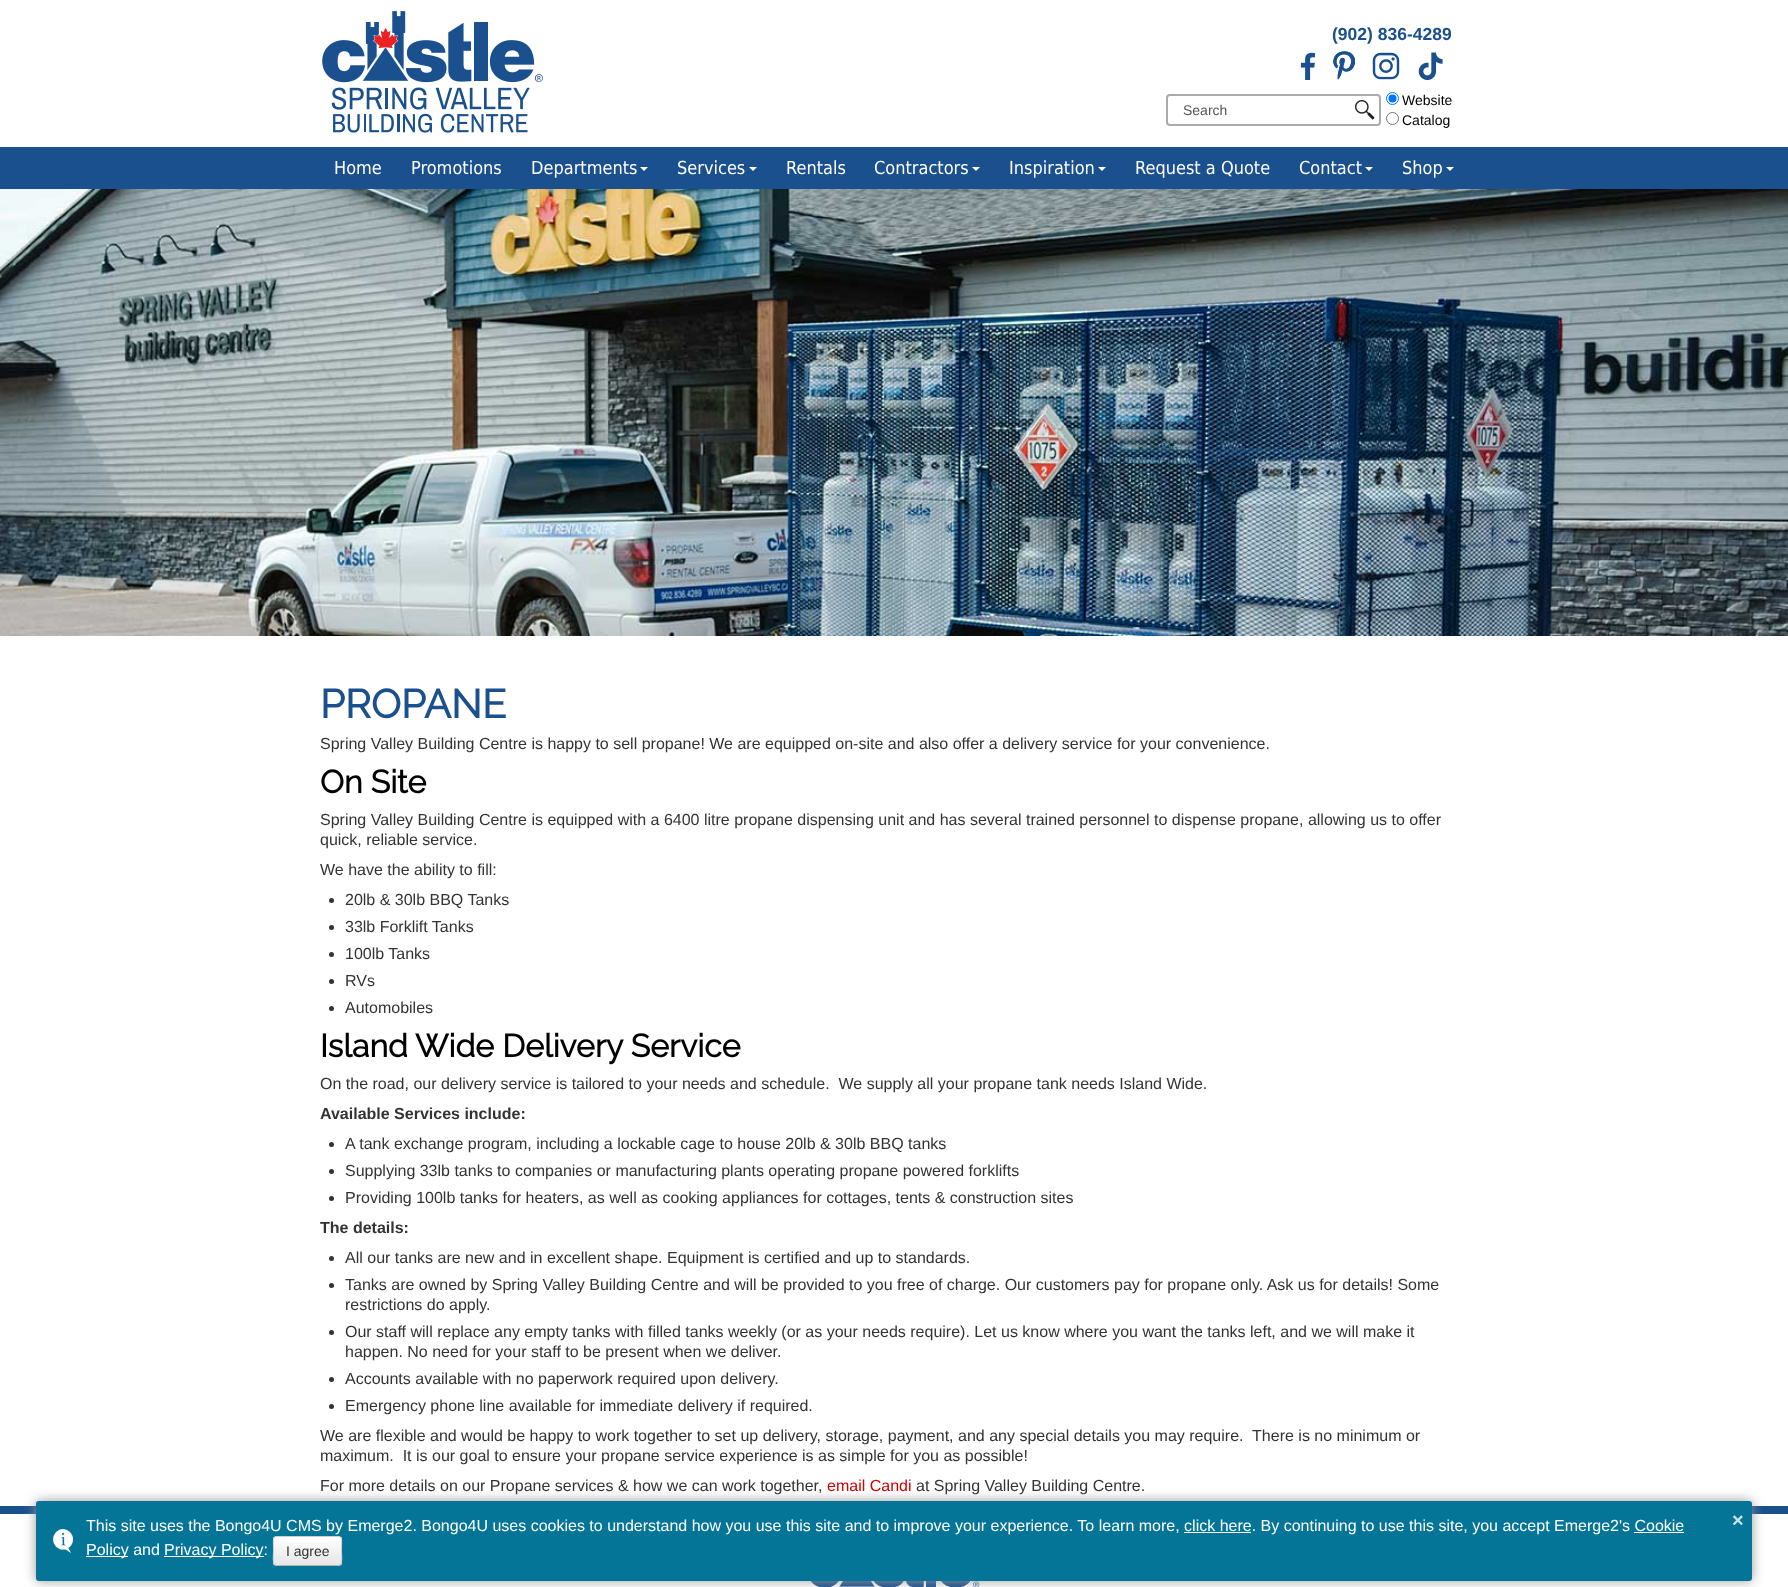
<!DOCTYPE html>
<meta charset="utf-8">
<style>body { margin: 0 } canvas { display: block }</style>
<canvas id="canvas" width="1788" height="1587"></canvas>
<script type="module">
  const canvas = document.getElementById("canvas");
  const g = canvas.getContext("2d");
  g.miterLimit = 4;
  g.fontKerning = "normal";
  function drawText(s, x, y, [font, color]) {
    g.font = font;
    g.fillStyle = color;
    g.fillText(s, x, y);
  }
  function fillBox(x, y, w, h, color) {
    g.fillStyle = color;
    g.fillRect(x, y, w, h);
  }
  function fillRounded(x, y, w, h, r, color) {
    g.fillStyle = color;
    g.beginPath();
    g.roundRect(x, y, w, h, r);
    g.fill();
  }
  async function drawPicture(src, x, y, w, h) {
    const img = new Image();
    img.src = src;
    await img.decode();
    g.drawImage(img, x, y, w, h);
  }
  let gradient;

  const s1 = ["bold 17.5px Liberation Sans", "#1B508E"];
  const s2 = ["14px Liberation Sans", "#555555"];
  const s3 = ["14px Liberation Sans", "#000000"];
  const s4 = ["18px DejaVu Sans", "#FFFFFF"];
  const s5 = ["bold 40px Raleway", "#1B508E"];
  const s6 = ["16px Liberation Sans", "#333333"];
  const s7 = ["bold 32px Raleway", "#000000"];
  const s8 = ["bold 16px Liberation Sans", "#333333"];
  const s9 = ["16px Liberation Sans", "#D20001"];
  const s10 = ["16px Liberation Sans", "#FFFFFF"];
  const s11 = ["14px Liberation Sans", "#333333"];
  const s12 = ["bold 20px Liberation Sans", "#CDE3EA"];

  fillBox(0, 0, 1788, 1587, "#FFFFFF");
  await drawPicture("pic1.png", 322, 11, 221, 122);
  drawText("(902) 836-4289", 1332, 40, s1);
  await drawPicture("pic2.png", 1300, 52, 16, 28);
  await drawPicture("pic3.png", 1333, 51, 22, 29);
  await drawPicture("pic4.png", 1372, 52, 28, 28);
  await drawPicture("pic5.png", 1418, 52, 25, 29);
  g.beginPath();
  g.roundRect(1167, 95, 213, 30, 3);
  g.strokeStyle = "#AAAAAA";
  g.lineWidth = 2;
  g.stroke();
  drawText("Search", 1183, 115, s2);
  await drawPicture("pic6.png", 1355, 100, 20, 20);
  g.beginPath();
  g.arc(1392.5, 98.5, 6, 0, Math.PI * 2);
  g.strokeStyle = "#0075FF";
  g.lineWidth = 1;
  g.stroke();
  g.fillStyle = "#0075FF";
  g.beginPath();
  g.arc(1392.5, 98.5, 4, 0, Math.PI * 2);
  g.fill();
  drawText("Website", 1402, 105, s3);
  g.beginPath();
  g.arc(1392.5, 118.5, 6, 0, Math.PI * 2);
  g.strokeStyle = "#767676";
  g.stroke();
  drawText("Catalog", 1402, 125, s3);
  fillBox(0, 147, 1788, 42, "#1B508E");
  drawText("Home", 334, 174, s4);
  drawText("Promotions", 411, 174, s4);
  drawText("Departments", 531, 174, s4);
  g.beginPath();
  g.moveTo(640, 167);
  g.lineTo(648, 167);
  g.lineTo(644, 171);
  g.closePath();
  g.fill();
  drawText("Services", 677, 174, s4);
  g.beginPath();
  g.moveTo(749, 167);
  g.lineTo(757, 167);
  g.lineTo(753, 171);
  g.closePath();
  g.fill();
  drawText("Rentals", 786, 174, s4);
  drawText("Contractors", 874, 174, s4);
  g.beginPath();
  g.moveTo(972, 167);
  g.lineTo(980, 167);
  g.lineTo(976, 171);
  g.closePath();
  g.fill();
  drawText("Inspiration", 1009, 174, s4);
  g.beginPath();
  g.moveTo(1098, 167);
  g.lineTo(1106, 167);
  g.lineTo(1102, 171);
  g.closePath();
  g.fill();
  drawText("Request a Quote", 1135, 174, s4);
  drawText("Contact", 1299, 174, s4);
  g.beginPath();
  g.moveTo(1365, 167);
  g.lineTo(1373, 167);
  g.lineTo(1369, 171);
  g.closePath();
  g.fill();
  drawText("Shop", 1402, 174, s4);
  g.beginPath();
  g.moveTo(1446, 167);
  g.lineTo(1454, 167);
  g.lineTo(1450, 171);
  g.closePath();
  g.fill();
  await drawPicture("pic7.png", 0, 189, 1788, 447);
  drawText("PROPANE", 320, 718, s5);
  drawText("Spring Valley Building Centre is happy to sell propane! We are equipped on-site and also offer a delivery service for your convenience.", 320, 749, s6);
  drawText("On Site", 320, 793, s7);
  drawText("Spring Valley Building Centre is equipped with a 6400 litre propane dispensing unit and has several trained personnel to dispense propane, allowing us to offer", 320, 825, s6);
  drawText("quick, reliable service.", 320, 845, s6);
  drawText("We have the ability to fill:", 320, 875, s6);
  g.beginPath();
  g.arc(331.5, 900.5, 2.5, 0, Math.PI * 2);
  g.fill();
  drawText("20lb & 30lb BBQ Tanks", 345, 905, s6);
  g.beginPath();
  g.arc(331.5, 927.5, 2.5, 0, Math.PI * 2);
  g.fill();
  drawText("33lb Forklift Tanks", 345, 932, s6);
  g.beginPath();
  g.arc(331.5, 954.5, 2.5, 0, Math.PI * 2);
  g.fill();
  drawText("100lb Tanks", 345, 959, s6);
  g.beginPath();
  g.arc(331.5, 981.5, 2.5, 0, Math.PI * 2);
  g.fill();
  drawText("RVs", 345, 986, s6);
  g.beginPath();
  g.arc(331.5, 1008.5, 2.5, 0, Math.PI * 2);
  g.fill();
  drawText("Automobiles", 345, 1013, s6);
  drawText("Island Wide Delivery Service", 320, 1057, s7);
  drawText("On the road, our delivery service is tailored to your needs and schedule.  We supply all your propane tank needs Island Wide.", 320, 1089, s6);
  drawText("Available Services include:", 320, 1119, s8);
  g.beginPath();
  g.arc(331.5, 1144.5, 2.5, 0, Math.PI * 2);
  g.fill();
  drawText("A tank exchange program, including a lockable cage to house 20lb & 30lb BBQ tanks", 345, 1149, s6);
  g.beginPath();
  g.arc(331.5, 1171.5, 2.5, 0, Math.PI * 2);
  g.fill();
  drawText("Supplying 33lb tanks to companies or manufacturing plants operating propane powered forklifts", 345, 1176, s6);
  g.beginPath();
  g.arc(331.5, 1198.5, 2.5, 0, Math.PI * 2);
  g.fill();
  drawText("Providing 100lb tanks for heaters, as well as cooking appliances for cottages, tents & construction sites", 345, 1203, s6);
  drawText("The details:", 320, 1233, s8);
  g.beginPath();
  g.arc(331.5, 1258.5, 2.5, 0, Math.PI * 2);
  g.fill();
  drawText("All our tanks are new and in excellent shape. Equipment is certified and up to standards.", 345, 1263, s6);
  g.beginPath();
  g.arc(331.5, 1285.5, 2.5, 0, Math.PI * 2);
  g.fill();
  drawText("Tanks are owned by Spring Valley Building Centre and will be provided to you free of charge. Our customers pay for propane only. Ask us for details! Some", 345, 1290, s6);
  drawText("restrictions do apply.", 345, 1310, s6);
  g.beginPath();
  g.arc(331.5, 1332.5, 2.5, 0, Math.PI * 2);
  g.fill();
  drawText("Our staff will replace any empty tanks with filled tanks weekly (or as your needs require). Let us know where you want the tanks left, and we will make it", 345, 1337, s6);
  drawText("happen. No need for your staff to be present when we deliver.", 345, 1357, s6);
  g.beginPath();
  g.arc(331.5, 1379.5, 2.5, 0, Math.PI * 2);
  g.fill();
  drawText("Accounts available with no paperwork required upon delivery.", 345, 1384, s6);
  g.beginPath();
  g.arc(331.5, 1406.5, 2.5, 0, Math.PI * 2);
  g.fill();
  drawText("Emergency phone line available for immediate delivery if required.", 345, 1411, s6);
  drawText("We are flexible and would be happy to work together to set up delivery, storage, payment, and any special details you may require.  There is no minimum or", 320, 1441, s6);
  drawText("maximum.  It is our goal to ensure your propane service experience is as simple for you as possible!", 320, 1461, s6);
  drawText("For more details on our Propane services & how we can work together,", 320, 1491, s6);
  drawText("email Candi", 827, 1491, s9);
  drawText("at Spring Valley Building Centre.", 916, 1491, s6);
  fillBox(0, 1506, 1788, 8, "#1B508E");
  await drawPicture("pic8.png", 810, 1581, 170, 6);
  g.fillStyle = "#999999";
  g.filter = "blur(6px)";
  g.beginPath();
  g.roundRect(36, 1501, 1716, 80, 3);
  g.fill();
  g.filter = "none";
  fillRounded(36, 1501, 1716, 80, 3, "#047597");
  await drawPicture("pic9.png", 53, 1529, 20, 24);
  drawText("This site uses the Bongo4U CMS by Emerge2. Bongo4U uses cookies to understand how you use this site and to improve your experience. To learn more, click here. By continuing to use this site, you accept Emerge2's Cookie", 86, 1531, s10);
  fillBox(1184, 1532, 67, 1, "#FFFFFF");
  fillBox(86, 1556, 42, 1, "#FFFFFF");
  drawText("Policy and", 86, 1555, s10);
  fillBox(1634, 1532, 50, 1, "#FFFFFF");
  fillBox(164, 1556, 100, 1, "#FFFFFF");
  drawText("Privacy Policy:", 164, 1555, s10);
  fillRounded(273, 1536, 69, 30, 4, "#F5F5F5");
  g.save();
  g.beginPath();
  g.roundRect(273, 1536, 69, 30, 4);
  g.clip();
  gradient = g.createLinearGradient(308, 1537, 308, 1565);
  gradient.addColorStop(0, "#FFFFFF");
  gradient.addColorStop(1, "#E6E6E6");
  g.fillStyle = gradient;
  g.fillRect(273, 1537, 69, 28);
  g.restore();
  g.beginPath();
  g.moveTo(340.5, 1564.5);
  g.lineTo(338.5, 1565.5);
  g.lineTo(276.5, 1565.5);
  g.lineTo(274.5, 1564.5);
  g.strokeStyle = "#B3B3B3";
  g.stroke();
  g.beginPath();
  g.moveTo(274.5, 1564.5);
  g.bezierCurveTo(272.5, 1562.5, 273.5, 1554, 273.5, 1551);
  g.bezierCurveTo(273.5, 1535, 271, 1536.5, 287, 1536.5);
  g.lineTo(328, 1536.5);
  g.bezierCurveTo(344, 1536.5, 341.5, 1535, 341.5, 1551);
  g.bezierCurveTo(341.5, 1554, 342.5, 1562.5, 340.5, 1564.5);
  g.strokeStyle = "#CCCCCC";
  g.stroke();
  drawText("I agree", 286, 1556, s11);
  drawText("×", 1732, 1527, s12);
</script>
